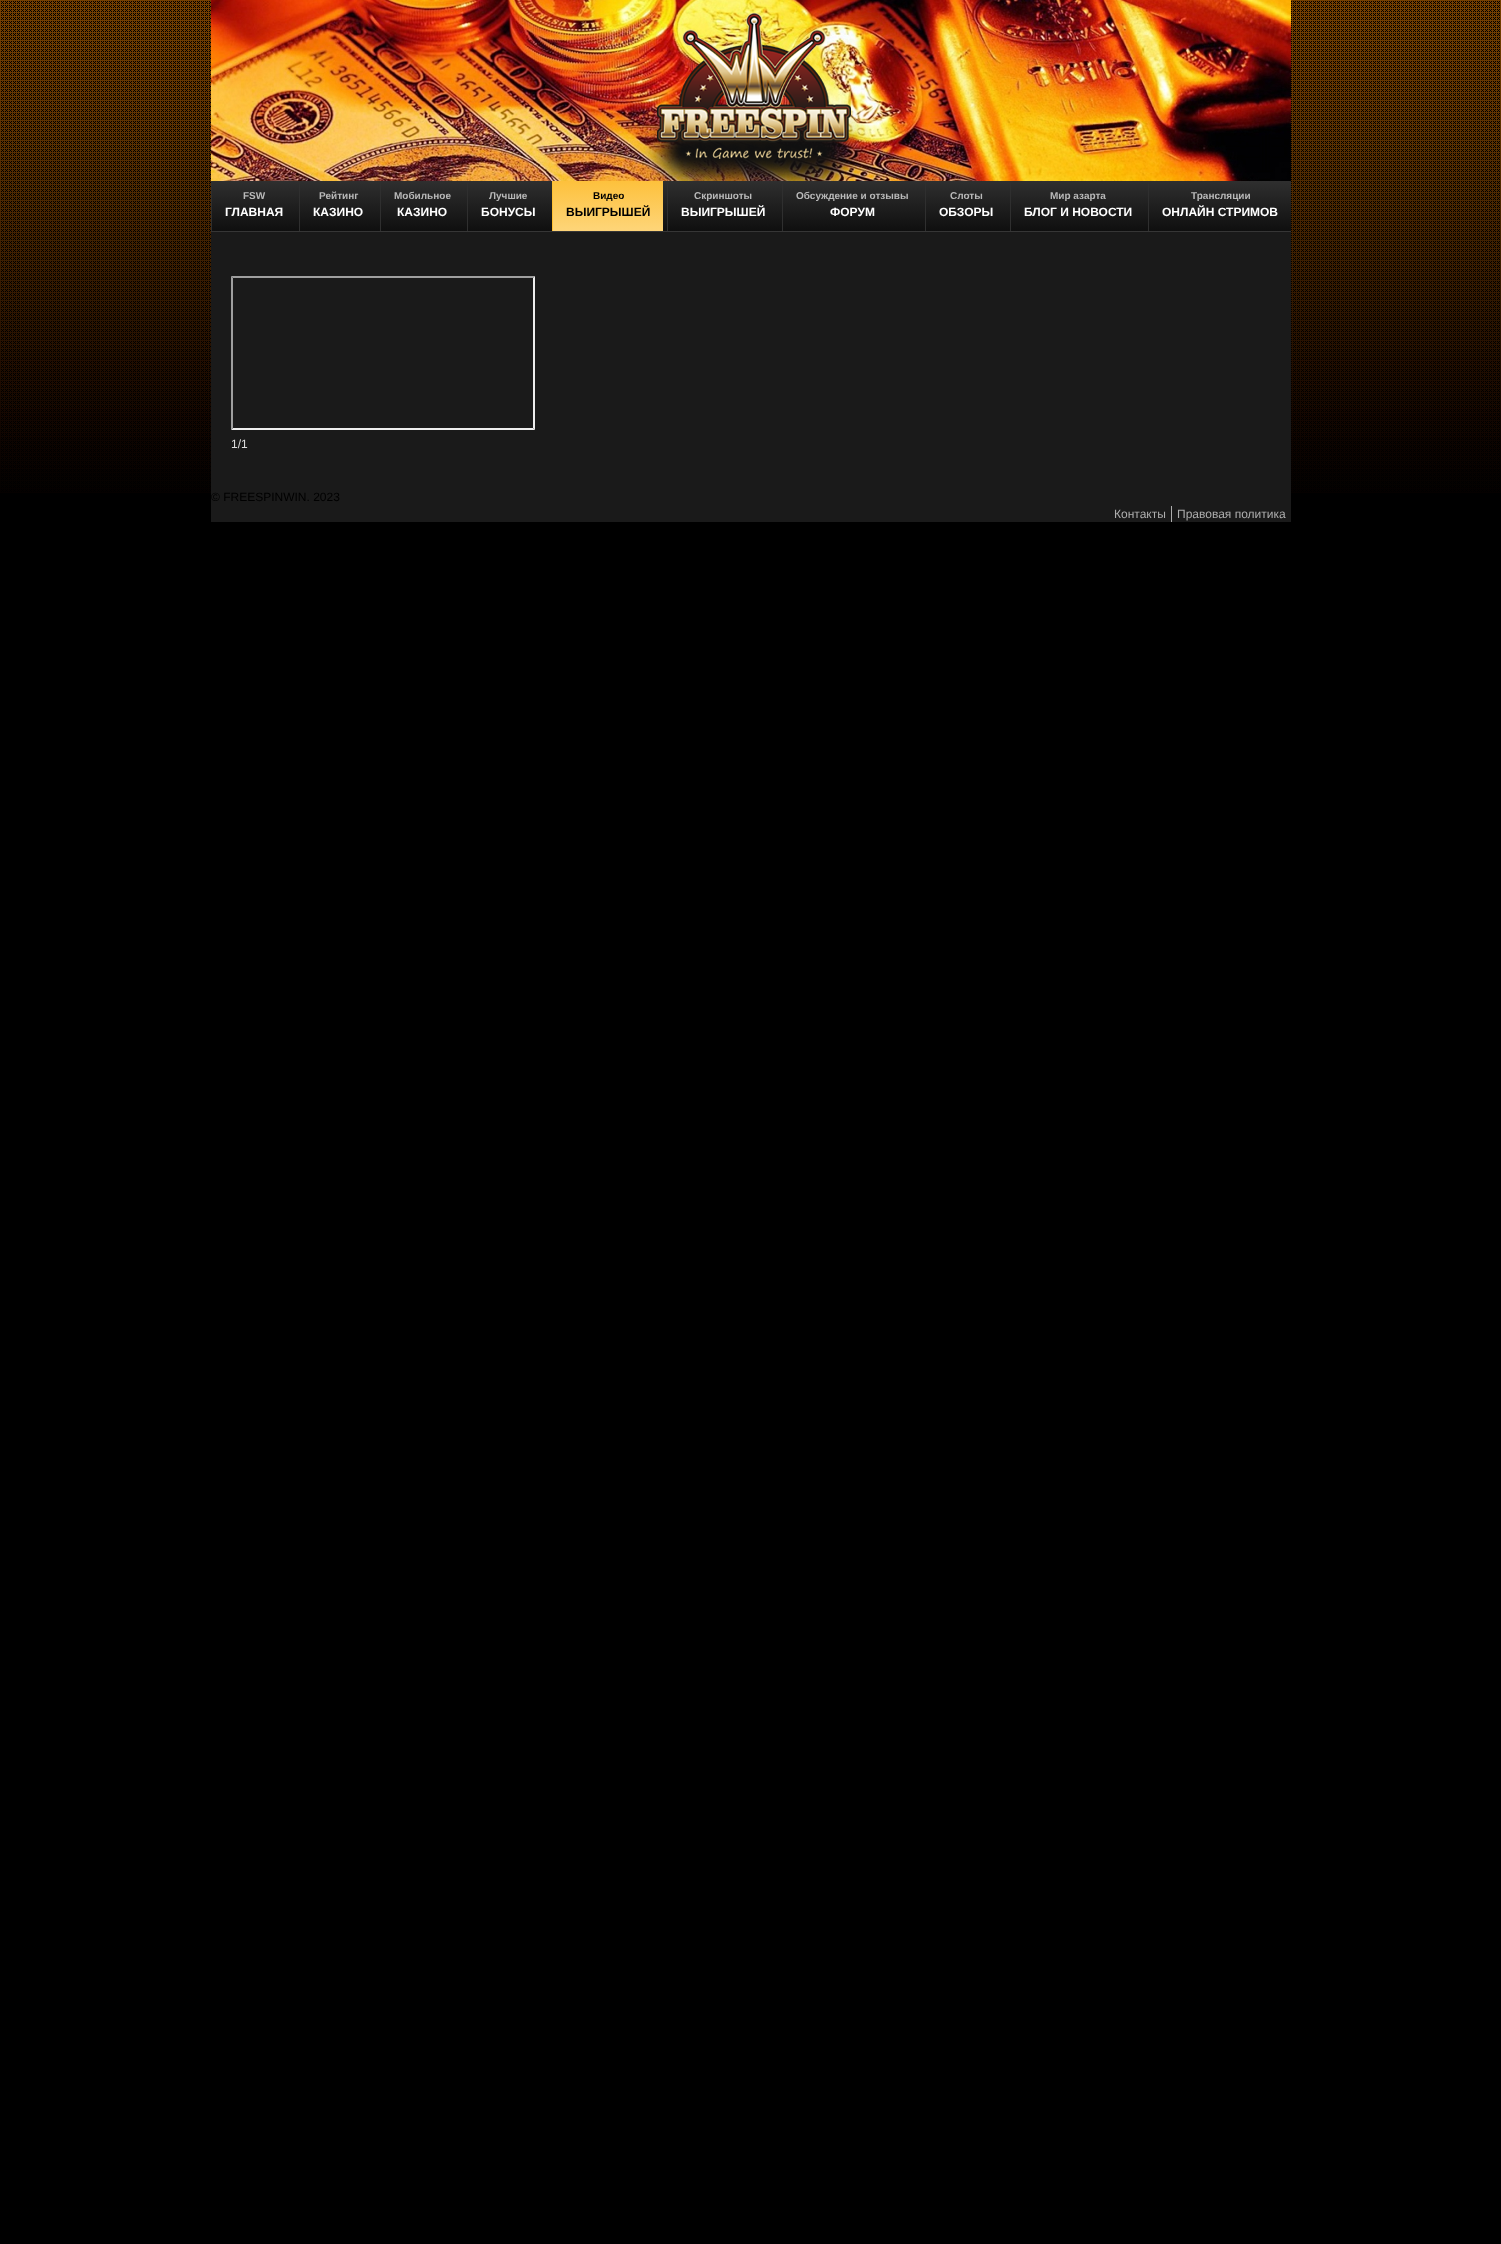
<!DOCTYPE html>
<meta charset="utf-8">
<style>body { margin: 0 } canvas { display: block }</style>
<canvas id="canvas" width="1501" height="2244"></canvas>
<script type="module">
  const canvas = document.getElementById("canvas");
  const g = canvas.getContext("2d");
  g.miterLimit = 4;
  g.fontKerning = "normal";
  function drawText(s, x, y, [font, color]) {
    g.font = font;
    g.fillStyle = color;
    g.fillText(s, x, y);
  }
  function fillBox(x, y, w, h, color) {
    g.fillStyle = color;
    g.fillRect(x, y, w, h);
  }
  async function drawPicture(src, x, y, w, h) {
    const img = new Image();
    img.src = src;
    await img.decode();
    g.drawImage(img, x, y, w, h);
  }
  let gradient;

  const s1 = ["bold 10px Liberation Sans", "#B9B9B9"];
  const s2 = ["bold 12px Liberation Sans", "#FFFFFF"];
  const s3 = ["bold 10px Liberation Sans", "#000000"];
  const s4 = ["bold 12px Liberation Sans", "#000000"];
  const s5 = ["12px Liberation Sans", "#DDDDDD"];
  const s6 = ["12px Liberation Sans", "#000000"];
  const s7 = ["12px Liberation Sans", "#ADADAD"];

  fillBox(0, 0, 1501, 2244, "#000000");
  await drawPicture("pic1.png", 0, 0, 1501, 493);
  fillBox(211, 232, 1080, 290, "#1A1A1A");
  await drawPicture("pic2.png", 211, 0, 1080, 181);
  gradient = g.createLinearGradient(751, 181, 751, 231);
  gradient.addColorStop(0, "#2F2F2F");
  gradient.addColorStop(1, "#0F0F0F");
  g.fillStyle = gradient;
  g.fillRect(212, 181, 1079, 50);
  fillBox(211, 231, 1080, 1, "#363636");
  fillBox(211, 181, 1, 50, "#2F2F2F");
  drawText("FSW", 243, 199, s1);
  drawText("ГЛАВНАЯ", 225, 216, s2);
  fillBox(299, 181, 1, 50, "#2F2F2F");
  drawText("Рейтинг", 319, 199, s1);
  drawText("КАЗИНО", 313, 216, s2);
  fillBox(380, 181, 1, 50, "#2F2F2F");
  drawText("Мобильное", 394, 199, s1);
  drawText("КАЗИНО", 397, 216, s2);
  fillBox(467, 181, 1, 50, "#2F2F2F");
  drawText("Лучшие", 489, 199, s1);
  drawText("БОНУСЫ", 481, 216, s2);
  gradient = g.createLinearGradient(608, 181, 608, 231);
  gradient.addColorStop(0, "#FDC13C");
  gradient.addColorStop(1, "#FED579");
  g.fillStyle = gradient;
  g.fillRect(553, 181, 110, 50);
  fillBox(552, 181, 1, 50, "#FFBF32");
  drawText("Видео", 593, 199, s3);
  drawText("ВЫИГРЫШЕЙ", 566, 216, s4);
  fillBox(667, 181, 1, 50, "#2F2F2F");
  drawText("Скриншоты", 694, 199, s1);
  drawText("ВЫИГРЫШЕЙ", 681, 216, s2);
  fillBox(782, 181, 1, 50, "#2F2F2F");
  drawText("Обсуждение и отзывы", 796, 199, s1);
  drawText("ФОРУМ", 830, 216, s2);
  fillBox(925, 181, 1, 50, "#2F2F2F");
  drawText("Слоты", 950, 199, s1);
  drawText("ОБЗОРЫ", 939, 216, s2);
  fillBox(1010, 181, 1, 50, "#2F2F2F");
  drawText("Мир азарта", 1050, 199, s1);
  drawText("БЛОГ И НОВОСТИ", 1024, 216, s2);
  fillBox(1148, 181, 1, 50, "#2F2F2F");
  drawText("Трансляции", 1191, 199, s1);
  drawText("ОНЛАЙН СТРИМОВ", 1162, 216, s2);
  g.fillStyle = "#9F9F9F";
  g.beginPath();
  g.moveTo(231, 276);
  g.lineTo(535, 276);
  g.lineTo(533, 278);
  g.lineTo(233, 278);
  g.closePath();
  g.fill();
  g.fillStyle = "#EEEEEE";
  g.beginPath();
  g.moveTo(535, 276);
  g.lineTo(535, 430);
  g.lineTo(533, 428);
  g.lineTo(533, 278);
  g.closePath();
  g.fill();
  g.beginPath();
  g.moveTo(535, 430);
  g.lineTo(231, 430);
  g.lineTo(233, 428);
  g.lineTo(533, 428);
  g.closePath();
  g.fill();
  g.fillStyle = "#9F9F9F";
  g.beginPath();
  g.moveTo(231, 430);
  g.lineTo(231, 276);
  g.lineTo(233, 278);
  g.lineTo(233, 428);
  g.closePath();
  g.fill();
  drawText("1/1", 231, 448, s5);
  drawText("© FREESPINWIN. 2023", 211, 501, s6);
  fillBox(1171, 506, 1, 16, "#ADADAD");
  drawText("Контакты", 1114, 518, s7);
  drawText("Правовая политика", 1177, 518, s7);
</script>
